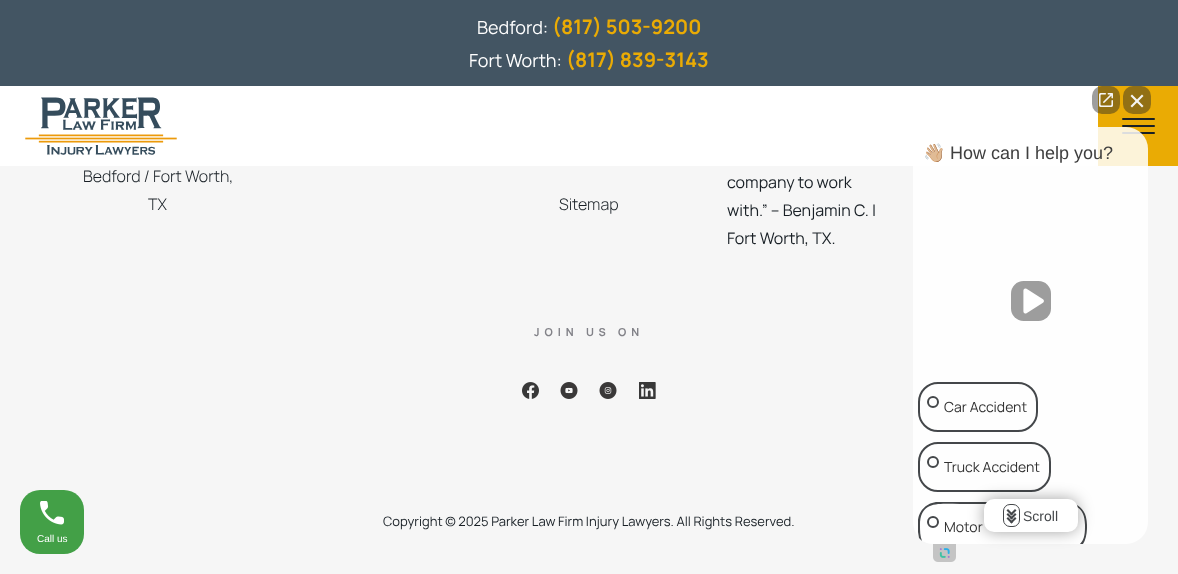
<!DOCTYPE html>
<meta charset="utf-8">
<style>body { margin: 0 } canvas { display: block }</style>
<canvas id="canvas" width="1178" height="574"></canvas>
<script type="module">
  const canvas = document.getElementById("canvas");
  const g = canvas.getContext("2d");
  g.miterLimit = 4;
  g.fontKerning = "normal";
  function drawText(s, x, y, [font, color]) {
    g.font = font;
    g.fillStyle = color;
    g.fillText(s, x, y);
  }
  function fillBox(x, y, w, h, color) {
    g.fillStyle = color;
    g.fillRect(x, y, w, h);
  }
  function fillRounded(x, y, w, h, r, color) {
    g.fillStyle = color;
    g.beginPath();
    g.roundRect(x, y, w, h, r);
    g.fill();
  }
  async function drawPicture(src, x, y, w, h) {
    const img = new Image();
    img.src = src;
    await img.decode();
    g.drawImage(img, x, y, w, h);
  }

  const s1 = ["18px Manrope", "#FFFFFF"];
  const s2 = ["bold 20px Manrope", "#EAAB04"];
  const s3 = ["300 16px Manrope", "#192026"];
  const s4 = ["16px Manrope", "#192026"];
  const s5 = ["bold 11px Manrope", "#828288"];
  const s6 = ["13px Manrope", "#192026"];
  const s7 = ["18px Noto Color Emoji", "#3F3F3F"];
  const s8 = ["18px Liberation Sans", "#3F3F3F"];
  const s9 = ["14px Manrope", "#313131"];
  const s10 = ["14px Liberation Sans", "#44474A"];
  const s11 = ["10px Liberation Sans", "#FFFFFF"];

  fillBox(0, 0, 1178, 574, "#F6F6F6");
  fillBox(0, 86, 1098, 80, "#FFFFFF");
  fillBox(0, 0, 1178, 86, "#435563");
  drawText("Bedford:", 477, 34, s1);
  drawText("(817) 503-9200", 552, 34, s2);
  drawText("Fort Worth:", 469, 67, s1);
  drawText("(817) 839-3143", 566, 67, s2);
  await drawPicture("pic1.png", 25, 97, 152, 58);
  fillBox(1098, 86, 80, 80, "#EAAB04");
  fillRounded(1122, 118, 33, 2, 1, "#192026");
  fillRounded(1122, 125, 33, 2, 1, "#192026");
  fillRounded(1122, 132, 33, 2, 1, "#192026");
  drawText("Bedford / Fort Worth,", 83, 182, s3);
  drawText("TX", 148, 210, s3);
  drawText("Sitemap", 559, 210, s3);
  drawText("company to work", 727, 188, s4);
  drawText("with.” – Benjamin C. |", 727, 216, s4);
  drawText("Fort Worth, TX.", 727, 244, s4);
  g.letterSpacing = "5px";
  drawText("JOIN US ON", 534, 336, s5);
  await drawPicture("pic2.png", 522, 382, 17, 17);
  await drawPicture("pic3.png", 560, 382, 18, 17);
  await drawPicture("pic4.png", 599, 382, 18, 17);
  await drawPicture("pic5.png", 639, 382, 17, 17);
  g.letterSpacing = "0px";
  drawText("Copyright © 2025 Parker Law Firm Injury Lawyers. All Rights Reserved.", 383, 526, s6);
  fillRounded(913, 127, 235, 417, 22, "rgba(255, 255, 255, 0.85)");
  fillRounded(1092, 86, 28, 28, 10, "rgba(39, 39, 39, 0.45)");
  await drawPicture("pic6.png", 1099, 93, 14, 14);
  fillRounded(1123, 86, 28, 28, 10, "#927014");
  g.fillStyle = "#F5F5F5";
  g.beginPath();
  g.moveTo(1130.5, 96);
  g.lineTo(1132, 94.5);
  g.lineTo(1143.5, 106);
  g.lineTo(1142, 107.5);
  g.closePath();
  g.fill();
  g.beginPath();
  g.moveTo(1142, 94.5);
  g.lineTo(1143.5, 96);
  g.lineTo(1132, 107.5);
  g.lineTo(1130.5, 106);
  g.closePath();
  g.fill();
  drawText("👋🏼", 923, 159, s7);
  drawText("How can I help you?", 950, 159, s8);
  await drawPicture("pic7.png", 1011, 281, 40, 40);
  g.beginPath();
  g.roundRect(919, 383, 118, 48, 19);
  g.strokeStyle = "#44474A";
  g.lineWidth = 2;
  g.stroke();
  g.beginPath();
  g.arc(933, 402, 5, 0, Math.PI * 2);
  g.stroke();
  drawText("Car Accident", 944, 412, s9);
  g.beginPath();
  g.roundRect(919, 443, 131, 48, 19);
  g.stroke();
  g.beginPath();
  g.arc(933, 462, 5, 0, Math.PI * 2);
  g.stroke();
  drawText("Truck Accident", 944, 472, s9);
  await drawPicture("pic8.png", 933, 544, 23, 18);
  g.save();
  g.beginPath();
  g.roundRect(913, 173, 235, 371, [0, 0, 20, 20]);
  g.clip();
  fillRounded(918, 502, 169, 50, 20, "rgba(255, 255, 255, 0.85)");
  g.restore();
  g.fillStyle = "#44474A";
  g.beginPath();
  g.moveTo(938, 502);
  g.bezierCurveTo(927, 502, 918, 511, 918, 522);
  g.lineTo(918, 532);
  g.lineTo(919, 538);
  g.lineTo(922, 541);
  g.bezierCurveTo(920, 536, 920, 531, 920, 525);
  g.bezierCurveTo(920, 500, 940, 504, 960, 504);
  g.lineTo(1046, 504);
  g.bezierCurveTo(1065, 504, 1085, 500, 1085, 525);
  g.bezierCurveTo(1085, 532, 1085, 539, 1080, 544);
  g.lineTo(1083, 544);
  g.bezierCurveTo(1088, 537, 1088, 521, 1085, 514);
  g.bezierCurveTo(1082, 507, 1075, 502, 1067, 502);
  g.closePath();
  g.fill();
  g.beginPath();
  g.arc(933, 522, 5, 0, Math.PI * 2);
  g.stroke();
  drawText("Motor", 944, 532, s9);
  g.fillStyle = "rgba(0, 0, 0, 0.36)";
  g.filter = "blur(7.5px)";
  g.beginPath();
  g.roundRect(984, 499, 94, 33, 10);
  g.fill();
  g.filter = "none";
  fillRounded(984, 499, 94, 33, 10, "#FFFFFF");
  g.beginPath();
  g.roundRect(1003.5, 504.5, 16, 22, 6.5);
  g.lineWidth = 1;
  g.stroke();
  g.fillStyle = "#44474A";
  g.beginPath();
  g.moveTo(1015, 509);
  g.lineTo(1016.5, 510.5);
  g.lineTo(1011.5, 515.5);
  g.lineTo(1010, 514);
  g.closePath();
  g.fill();
  g.beginPath();
  g.moveTo(1008, 509);
  g.lineTo(1013, 514);
  g.lineTo(1011.5, 515.5);
  g.lineTo(1006.5, 510.5);
  g.closePath();
  g.fill();
  g.beginPath();
  g.moveTo(1015, 513);
  g.lineTo(1016.5, 514.5);
  g.lineTo(1011.5, 519.5);
  g.lineTo(1010, 518);
  g.closePath();
  g.fill();
  g.beginPath();
  g.moveTo(1008, 513);
  g.lineTo(1013, 518);
  g.lineTo(1011.5, 519.5);
  g.lineTo(1006.5, 514.5);
  g.closePath();
  g.fill();
  g.beginPath();
  g.moveTo(1015, 517);
  g.lineTo(1016.5, 518.5);
  g.lineTo(1011.5, 523.5);
  g.lineTo(1010, 522);
  g.closePath();
  g.fill();
  g.beginPath();
  g.moveTo(1008, 517);
  g.lineTo(1013, 522);
  g.lineTo(1011.5, 523.5);
  g.lineTo(1006.5, 518.5);
  g.closePath();
  g.fill();
  drawText("Scroll", 1023, 521, s10);
  fillRounded(20, 490, 64, 64, 20, "#43A047");
  await drawPicture("pic9.png", 40, 501, 24, 24);
  drawText("Call us", 37, 542, s11);
</script>
